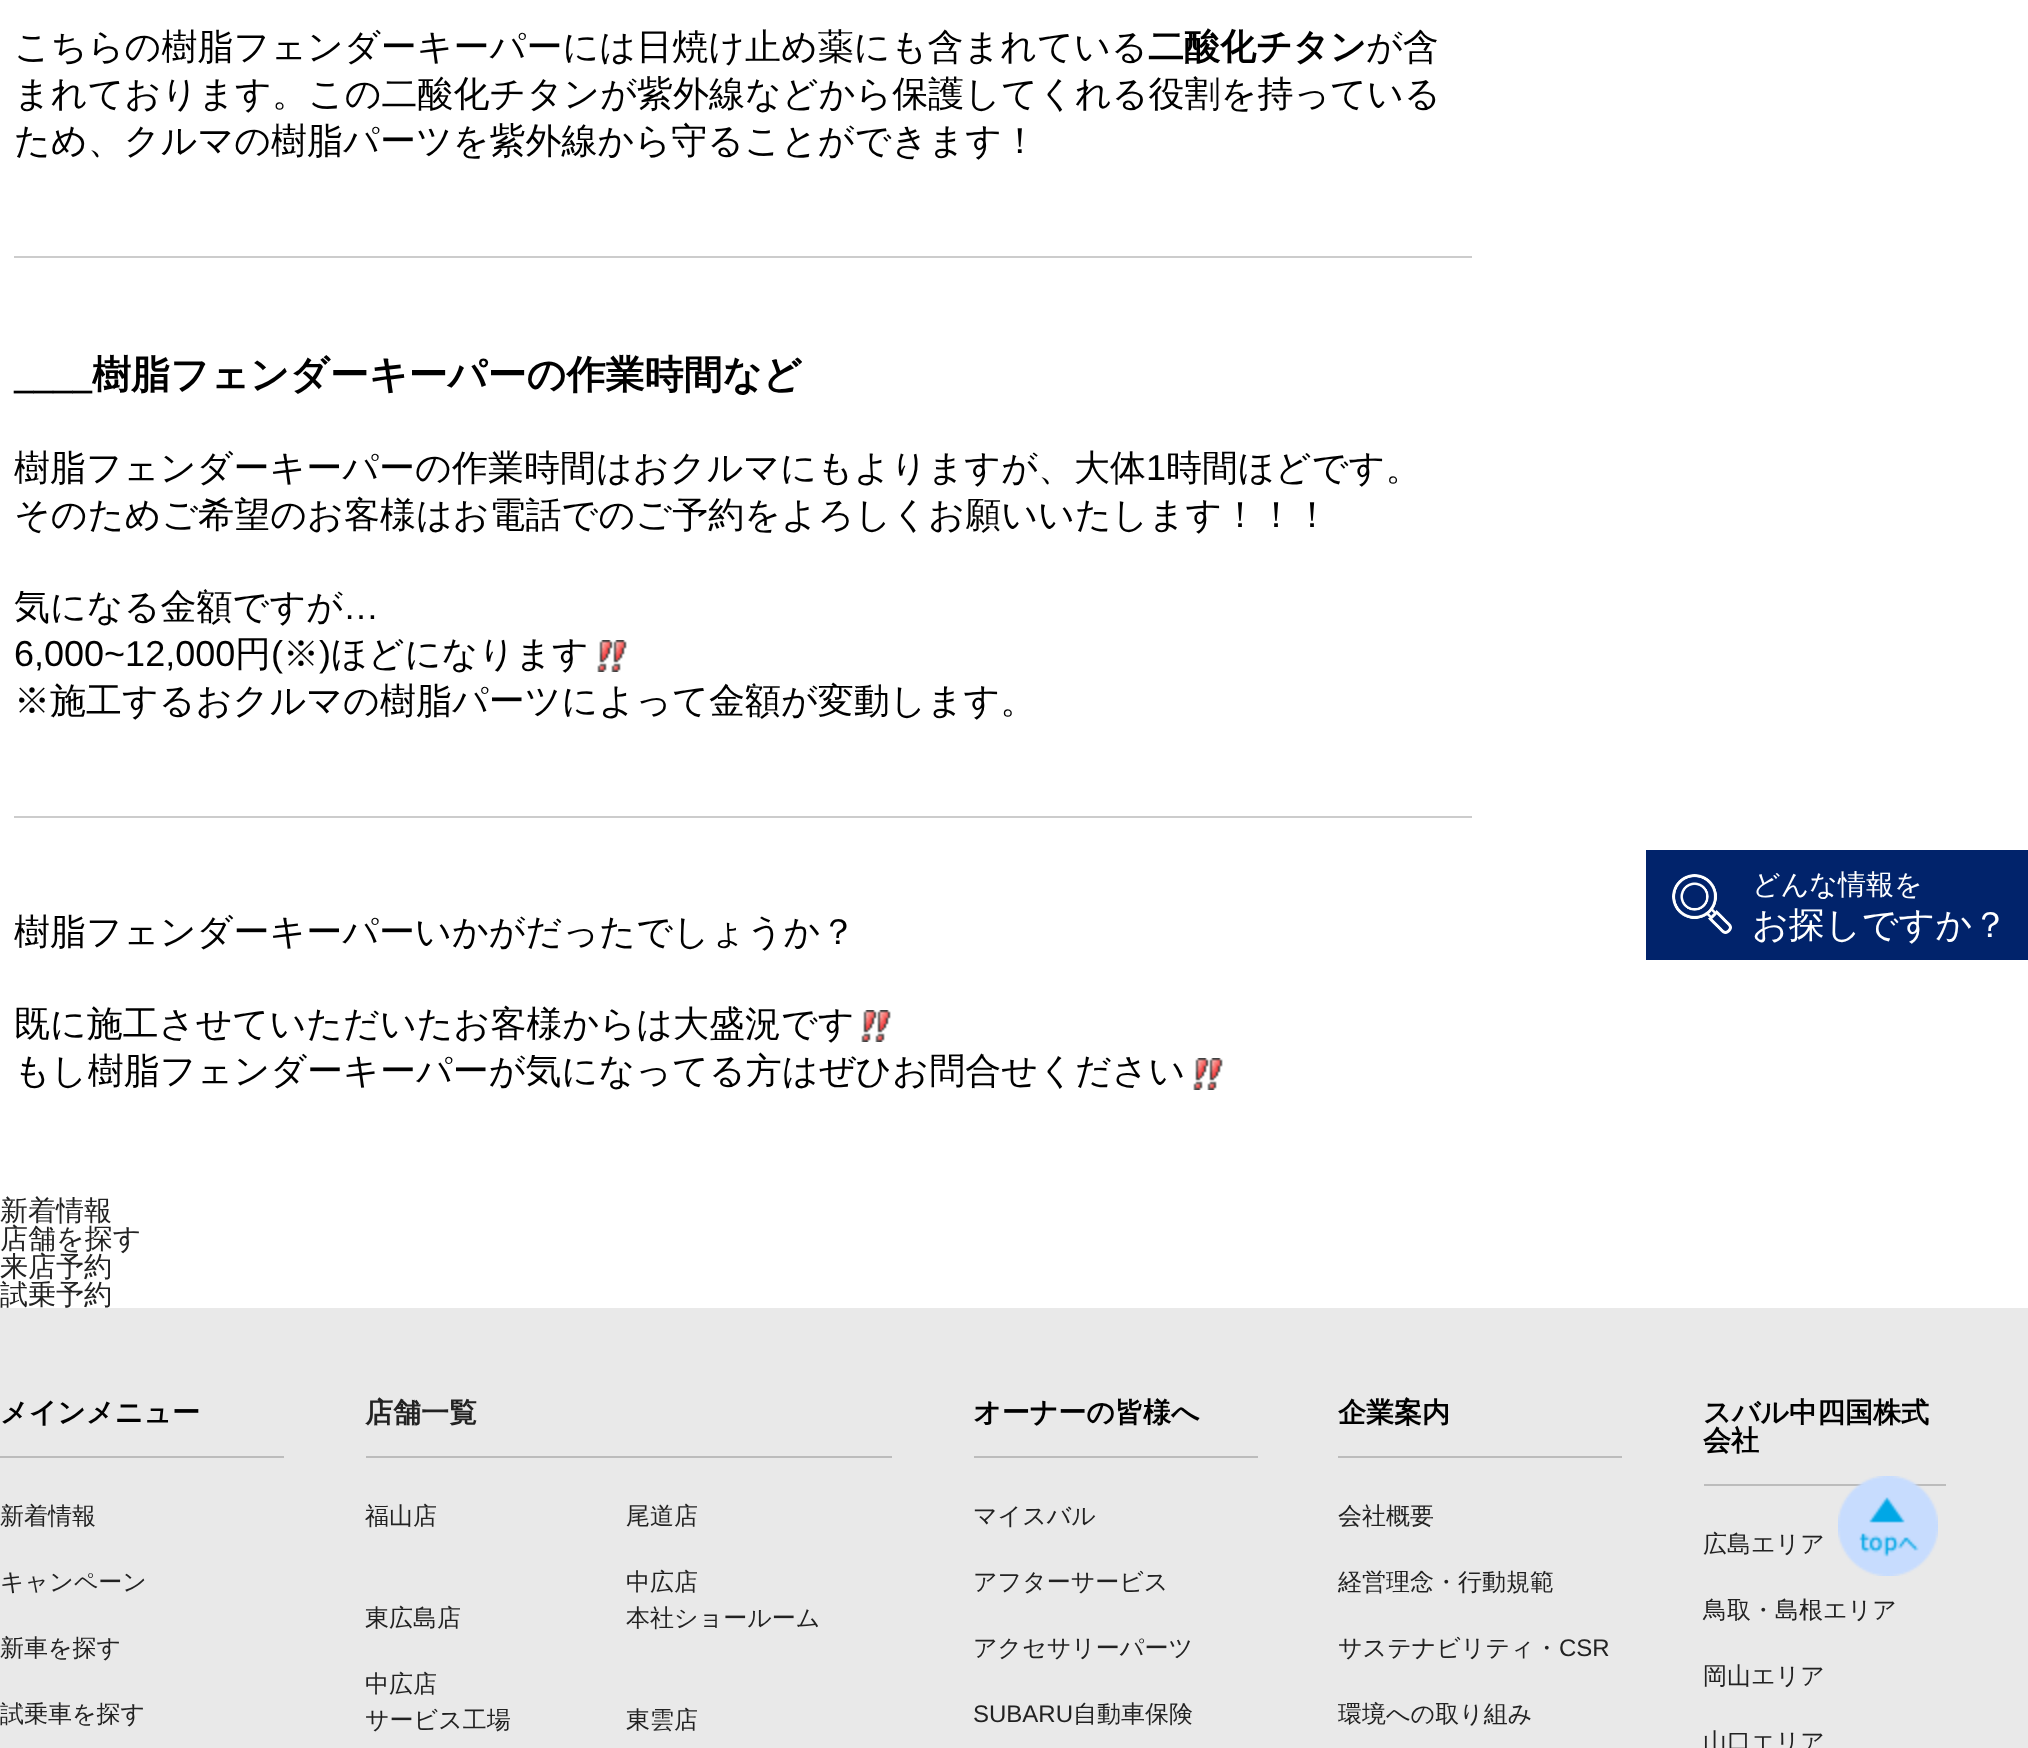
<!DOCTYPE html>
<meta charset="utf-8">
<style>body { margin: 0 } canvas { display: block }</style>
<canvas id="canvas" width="2028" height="1748"></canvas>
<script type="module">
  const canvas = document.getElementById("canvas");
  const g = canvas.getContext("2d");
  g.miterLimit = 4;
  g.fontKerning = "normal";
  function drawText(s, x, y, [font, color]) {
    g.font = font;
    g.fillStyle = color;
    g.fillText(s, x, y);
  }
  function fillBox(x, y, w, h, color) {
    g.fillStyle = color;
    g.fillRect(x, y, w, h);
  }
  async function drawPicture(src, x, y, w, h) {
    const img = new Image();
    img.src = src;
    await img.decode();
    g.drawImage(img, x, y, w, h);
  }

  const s1 = ["500 36px WenQuanYi Zen Hei", "#000000"];
  const s2 = ["bold 36px WenQuanYi Zen Hei", "#000000"];
  const s3 = ["bold 39px Liberation Serif", "#000000"];
  const s4 = ["bold 39px WenQuanYi Zen Hei", "#000000"];
  const s5 = ["36px Liberation Sans", "#000000"];
  const s6 = ["500 28px WenQuanYi Zen Hei", "#FFFFFF"];
  const s7 = ["500 36px WenQuanYi Zen Hei", "#FFFFFF"];
  const s8 = ["500 28px WenQuanYi Zen Hei", "#222222"];
  const s9 = ["bold 28px WenQuanYi Zen Hei", "#000000"];
  const s10 = ["500 24px WenQuanYi Zen Hei", "#222222"];
  const s11 = ["bold 28px WenQuanYi Zen Hei", "#222222"];
  const s12 = ["24px Liberation Sans", "#222222"];

  fillBox(0, 0, 2028, 1748, "#FFFFFF");
  drawText("こちらの樹脂フェンダーキーパーには日焼け止め薬にも含まれている", 14, 59, s1);
  drawText("二酸化チタン", 1148, 59, s2);
  drawText("が含", 1366, 59, s1);
  drawText("まれております。この二酸化チタンが紫外線などから保護してくれる役割を持っている", 14, 106, s1);
  drawText("ため、クルマの樹脂パーツを紫外線から守ることができます！", 14, 153, s1);
  fillBox(14, 256, 1458, 2, "#CCCCCC");
  drawText("____", 14, 388, s3);
  drawText("樹脂フェンダーキーパーの作業時間など", 92, 388, s4);
  drawText("樹脂フェンダーキーパーの作業時間はおクルマにもよりますが、大体", 14, 480, s1);
  drawText("1", 1146, 480, s5);
  drawText("時間ほどです。", 1166, 480, s1);
  drawText("そのためご希望のお客様はお電話でのご予約をよろしくお願いいたします！！！", 14, 527, s1);
  drawText("気になる金額ですが", 14, 619, s1);
  drawText("…", 343, 619, s5);
  drawText("6,000~12,000", 14, 666, s5);
  drawText("円", 235, 666, s1);
  drawText("(", 271, 666, s5);
  drawText("※", 283, 666, s1);
  drawText(")", 319, 666, s5);
  drawText("ほどになります", 331, 666, s1);
  await drawPicture("pic1.png", 597, 640, 30, 32);
  drawText("※施工するおクルマの樹脂パーツによって金額が変動します。", 14, 713, s1);
  fillBox(14, 816, 1458, 2, "#CCCCCC");
  drawText("樹脂フェンダーキーパーいかがだったでしょうか？", 14, 944, s1);
  drawText("既に施工させていただいたお客様からは大盛況です", 14, 1036, s1);
  await drawPicture("pic1.png", 861, 1010, 30, 32);
  drawText("もし樹脂フェンダーキーパーが気になってる方はぜひお問合せください", 14, 1083, s1);
  await drawPicture("pic1.png", 1193, 1058, 30, 32);
  fillBox(1646, 850, 382, 110, "#01236B");
  await drawPicture("pic2.png", 1672, 874, 60, 60);
  drawText("どんな情報を", 1752, 894, s6);
  drawText("お探しですか？", 1752, 937, s7);
  drawText("新着情報", 0, 1220, s8);
  drawText("店舗を探す", 0, 1248, s8);
  drawText("来店予約", 0, 1276, s8);
  drawText("試乗予約", 0, 1304, s8);
  fillBox(0, 1308, 2028, 440, "#E9E9E9");
  fillBox(0, 1456, 284, 2, "#BCBCBC");
  drawText("メインメニュー", 0, 1422, s9);
  drawText("新着情報", 0, 1524, s10);
  drawText("キャンペーン", 0, 1590, s10);
  drawText("新車を探す", 0, 1656, s10);
  drawText("試乗車を探す", 0, 1722, s10);
  fillBox(366, 1456, 526, 2, "#BCBCBC");
  drawText("店舗一覧", 365, 1422, s11);
  drawText("福山店", 365, 1524, s10);
  drawText("尾道店", 626, 1524, s10);
  drawText("東広島店", 365, 1626, s10);
  drawText("中広店", 626, 1590, s10);
  drawText("本社ショールーム", 626, 1626, s10);
  drawText("中広店", 365, 1692, s10);
  drawText("サービス工場", 365, 1728, s10);
  drawText("東雲店", 626, 1728, s10);
  fillBox(974, 1456, 284, 2, "#BCBCBC");
  drawText("オーナーの皆様へ", 973, 1422, s9);
  drawText("マイスバル", 973, 1524, s10);
  drawText("アフターサービス", 973, 1590, s10);
  drawText("アクセサリーパーツ", 973, 1656, s10);
  drawText("SUBARU", 973, 1722, s12);
  drawText("自動車保険", 1073, 1722, s10);
  fillBox(1338, 1456, 284, 2, "#BCBCBC");
  drawText("企業案内", 1338, 1422, s9);
  drawText("会社概要", 1338, 1524, s10);
  drawText("経営理念・行動規範", 1338, 1590, s10);
  drawText("サステナビリティ・", 1338, 1656, s10);
  drawText("CSR", 1559, 1656, s12);
  drawText("環境への取り組み", 1338, 1722, s10);
  fillBox(1704, 1484, 242, 2, "#BCBCBC");
  drawText("スバル中四国株式", 1703, 1422, s9);
  drawText("会社", 1703, 1450, s9);
  drawText("広島エリア", 1703, 1552, s10);
  drawText("鳥取・島根エリア", 1703, 1618, s10);
  drawText("岡山エリア", 1703, 1684, s10);
  drawText("山口エリア", 1703, 1750, s10);
  await drawPicture("pic3.png", 1838, 1476, 100, 100);
</script>
